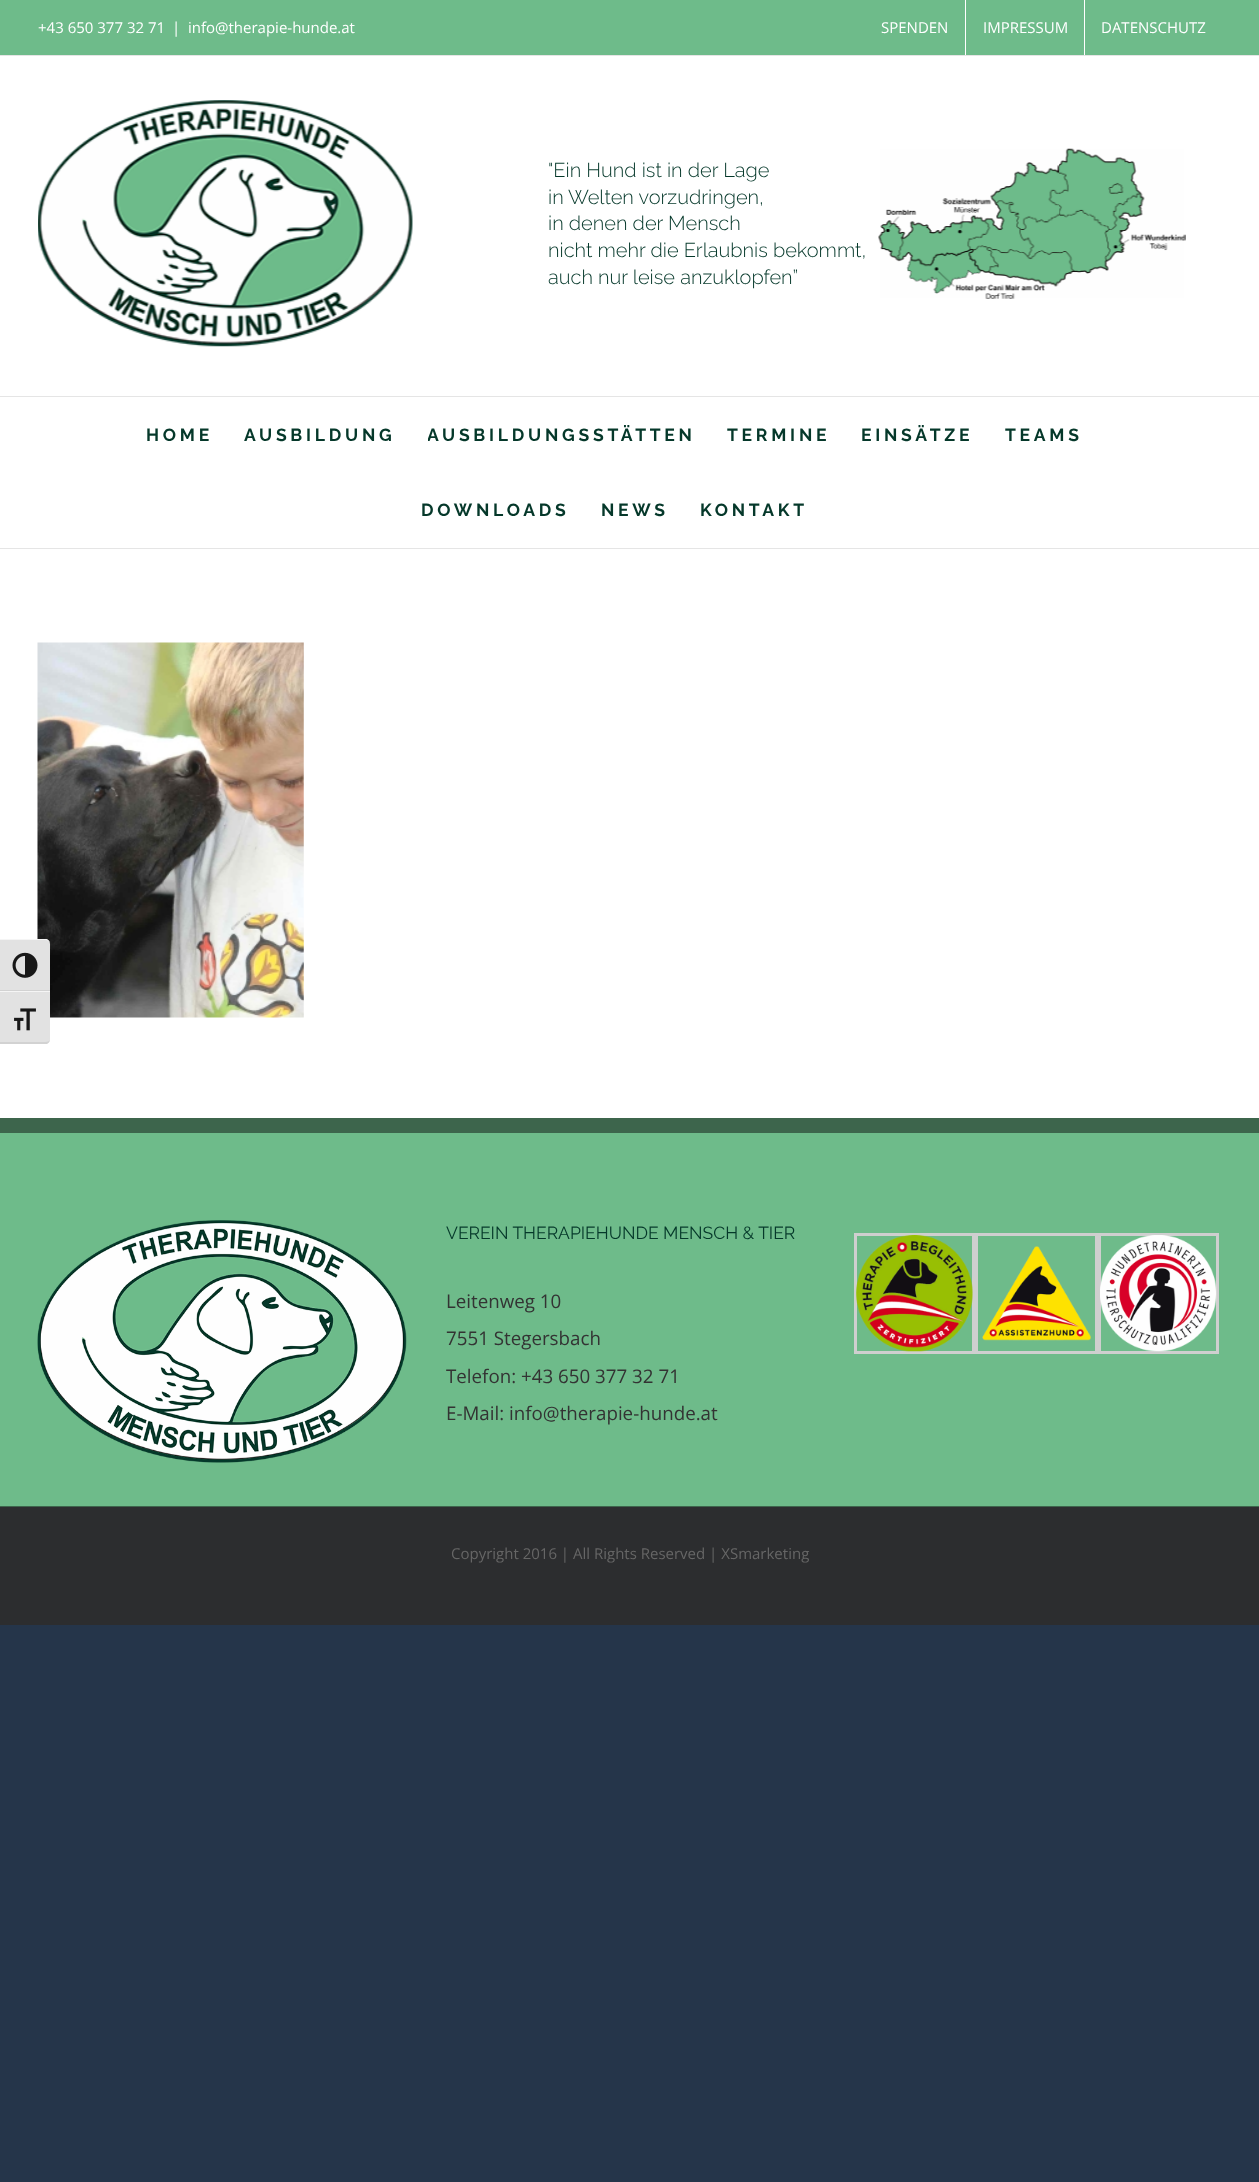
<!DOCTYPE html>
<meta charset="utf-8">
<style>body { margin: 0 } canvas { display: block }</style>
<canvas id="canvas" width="1259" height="2182"></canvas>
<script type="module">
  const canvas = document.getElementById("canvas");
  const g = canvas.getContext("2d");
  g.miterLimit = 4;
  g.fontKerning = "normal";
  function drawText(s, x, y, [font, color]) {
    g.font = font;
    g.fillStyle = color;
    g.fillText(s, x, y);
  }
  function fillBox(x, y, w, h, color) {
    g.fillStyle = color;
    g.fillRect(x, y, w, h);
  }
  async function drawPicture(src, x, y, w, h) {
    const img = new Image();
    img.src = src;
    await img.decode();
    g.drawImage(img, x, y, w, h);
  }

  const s1 = ["15px Open Sans", "#FFFFFF"];
  const s2 = ["300 20px Raleway", "#05382A"];
  const s3 = ["bold 17.5px Raleway", "#05382A"];
  const s4 = ["17.5px Raleway", "#05382A"];
  const s5 = ["18.75px Open Sans", "#333333"];
  const s6 = ["15px Open Sans", "#666666"];

  fillBox(0, 0, 1259, 2182, "#25354A");
  fillBox(0, 56, 1259, 1062, "#FFFFFF");
  await drawPicture("pic5.png", 37, 642, 267, 376);
  g.fillStyle = "#E2E2E2";
  g.beginPath();
  g.roundRect(0, 939, 50, 52, [0, 5, 0, 0]);
  g.fill();
  g.fillStyle = "#F5F5F5";
  g.beginPath();
  g.moveTo(0, 940);
  g.lineTo(45, 940);
  g.bezierCurveTo(48, 940, 50, 942, 50, 944);
  g.bezierCurveTo(50, 941, 48, 939, 45, 939);
  g.lineTo(0, 939);
  g.closePath();
  g.fill();
  fillBox(0, 990, 50, 1, "#D2D2D2");
  await drawPicture("pic1.png", 12, 952, 26, 26);
  g.fillStyle = "#E2E2E2";
  g.beginPath();
  g.roundRect(0, 991, 50, 53, [0, 0, 5, 0]);
  g.fill();
  fillBox(0, 991, 50, 1, "#F5F5F5");
  g.fillStyle = "#D2D2D2";
  g.beginPath();
  g.moveTo(47, 1044);
  g.bezierCurveTo(49, 1043, 50, 1041, 50, 1039);
  g.bezierCurveTo(50, 1041, 48, 1042, 45, 1042);
  g.lineTo(0, 1042);
  g.lineTo(0, 1044);
  g.closePath();
  g.fill();
  await drawPicture("pic2.png", 14, 1008, 22, 23);
  fillBox(0, 0, 1259, 55, "#6EBB8A");
  fillBox(0, 55, 1259, 1, "#E5E5E5");
  drawText("+43 650 377 32 71", 38, 33, s1);
  drawText("|", 172, 33, s1);
  drawText("info@therapie-hunde.at", 188, 33, s1);
  drawText("SPENDEN", 881, 33, s1);
  fillBox(965, 0, 1, 55, "#FFFFFF");
  drawText("IMPRESSUM", 983, 33, s1);
  fillBox(1084, 0, 1, 55, "#FFFFFF");
  drawText("DATENSCHUTZ", 1101, 33, s1);
  fillBox(0, 396, 1259, 1, "#E5E5E5");
  await drawPicture("pic3.png", 38, 100, 375, 247);
  drawText("\"Ein Hund ist in der Lage", 548, 177, s2);
  drawText("in Welten vorzudringen,", 548, 204, s2);
  drawText("in denen der Mensch", 548, 230, s2);
  drawText("nicht mehr die Erlaubnis bekommt,", 548, 257, s2);
  drawText("auch nur leise anzuklopfen”", 548, 284, s2);
  await drawPicture("pic4.png", 878, 148, 308, 151);
  fillBox(0, 548, 1259, 1, "#E5E5E5");
  g.letterSpacing = "3.75px";
  drawText("HOME", 146, 441, s3);
  drawText("AUSBILDUNG", 244, 441, s3);
  g.save();
  g.beginPath();
  g.rect(428, 398, 300, 75);
  g.clip();
  drawText("AUSBILDUNGSSTÄTTEN", 427, 441, s3);
  g.restore();
  drawText("TERMINE", 727, 441, s3);
  drawText("EINSÄTZE", 861, 441, s3);
  drawText("TEAMS", 1005, 441, s3);
  drawText("DOWNLOADS", 421, 516, s3);
  drawText("NEWS", 601, 516, s3);
  drawText("KONTAKT", 700, 516, s3);
  fillBox(0, 1133, 1259, 373, "#6EBB8A");
  fillBox(0, 1118, 1259, 15, "#3D654C");
  await drawPicture("pic6.png", 37, 1220, 370, 243);
  g.letterSpacing = "0px";
  drawText("VEREIN THERAPIEHUNDE MENSCH & TIER", 446, 1239, s4);
  drawText("Leitenweg 10", 446, 1308, s5);
  drawText("7551 Stegersbach", 446, 1345, s5);
  drawText("Telefon: +43 650 377 32 71", 446, 1383, s5);
  drawText("E-Mail: info@therapie-hunde.at", 446, 1420, s5);
  g.strokeStyle = "#CFCFCF";
  g.lineWidth = 3;
  g.strokeRect(855.5, 1234.5, 118, 118);
  await drawPicture("pic7.png", 856, 1235, 117, 117);
  g.strokeRect(976.5, 1234.5, 120, 118);
  await drawPicture("pic8.png", 982, 1246, 109, 95);
  g.strokeRect(1099.5, 1234.5, 118, 118);
  await drawPicture("pic9.png", 1100, 1235, 117, 117);
  fillBox(0, 1507, 1259, 118, "#2C2D2F");
  fillBox(0, 1506, 1259, 1, "#3D654C");
  drawText("Copyright 2016 | All Rights Reserved | XSmarketing", 451, 1559, s6);
</script>
